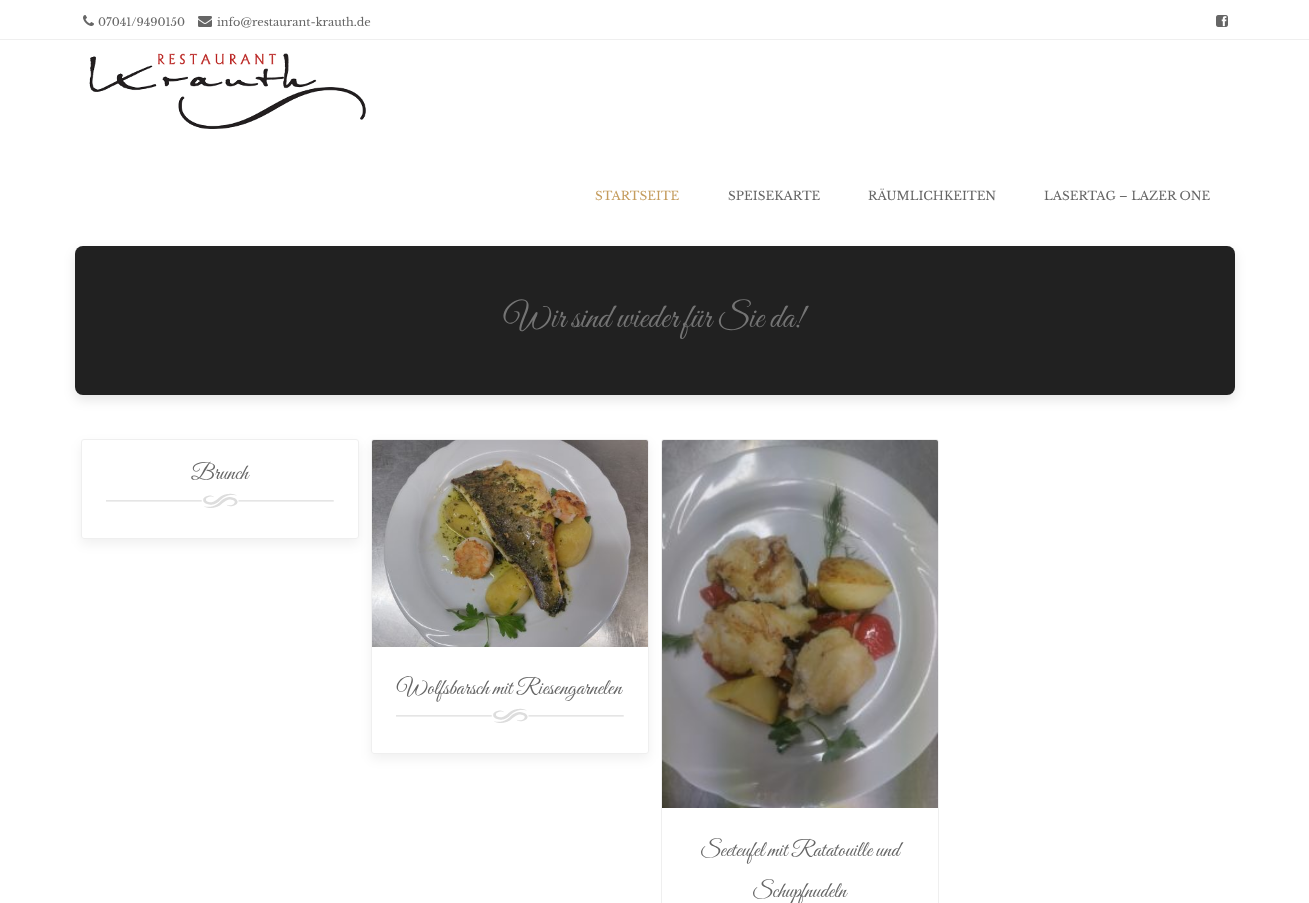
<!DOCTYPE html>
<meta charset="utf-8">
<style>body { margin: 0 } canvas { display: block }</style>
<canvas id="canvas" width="1309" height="903"></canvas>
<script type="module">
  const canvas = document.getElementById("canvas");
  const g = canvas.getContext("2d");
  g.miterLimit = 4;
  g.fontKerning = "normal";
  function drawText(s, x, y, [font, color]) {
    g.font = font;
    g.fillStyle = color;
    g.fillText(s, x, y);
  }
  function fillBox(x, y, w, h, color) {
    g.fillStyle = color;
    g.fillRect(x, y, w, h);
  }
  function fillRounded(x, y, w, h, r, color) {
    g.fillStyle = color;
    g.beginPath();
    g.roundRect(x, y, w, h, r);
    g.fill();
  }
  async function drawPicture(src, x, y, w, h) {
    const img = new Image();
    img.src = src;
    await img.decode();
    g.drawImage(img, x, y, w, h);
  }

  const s1 = ["11.25px Libre Baskerville", "#666666"];
  const s2 = ["12px Libre Baskerville", "#C59D5F"];
  const s3 = ["12px Libre Baskerville", "#666666"];
  const s4 = ["34px Great Vibes", "#747474"];
  const s5 = ["22px Great Vibes", "#666666"];

  fillBox(0, 0, 1309, 903, "#FFFFFF");
  fillBox(0, 39, 1309, 1, "#EFEFEF");
  await drawPicture("pic1.png", 83, 15, 11, 11);
  drawText("07041/9490150", 98, 26, s1);
  await drawPicture("pic2.png", 198, 16, 14, 11);
  drawText("info@restaurant-krauth.de", 217, 26, s1);
  await drawPicture("pic3.png", 1216, 15, 12, 12);
  await drawPicture("pic4.png", 89, 53, 277, 76);
  drawText("STARTSEITE", 595, 200, s2);
  drawText("SPEISEKARTE", 728, 200, s3);
  drawText("RÄUMLICHKEITEN", 868, 200, s3);
  drawText("LASERTAG – LAZER ONE", 1044, 200, s3);
  g.fillStyle = "rgba(0, 0, 0, 0.1)";
  g.filter = "blur(6px)";
  g.beginPath();
  g.roundRect(75, 251, 1160, 149, 8);
  g.fill();
  g.filter = "none";
  fillRounded(75, 246, 1160, 149, 8, "#212121");
  drawText("Wir sind wieder für Sie da!", 504, 327, s4);
  g.save();
  g.beginPath();
  g.moveTo(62, 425);
  g.lineTo(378, 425);
  g.lineTo(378, 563);
  g.lineTo(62, 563);
  g.closePath();
  g.moveTo(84, 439);
  g.lineTo(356, 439);
  g.bezierCurveTo(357.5, 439, 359, 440.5, 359, 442);
  g.lineTo(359, 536);
  g.bezierCurveTo(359, 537.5, 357.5, 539, 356, 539);
  g.lineTo(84, 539);
  g.bezierCurveTo(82.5, 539, 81, 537.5, 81, 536);
  g.lineTo(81, 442);
  g.bezierCurveTo(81, 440.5, 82.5, 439, 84, 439);
  g.closePath();
  g.clip("evenodd");
  g.fillStyle = "rgba(0, 0, 0, 0.06)";
  g.filter = "blur(6px)";
  g.beginPath();
  g.roundRect(81, 444, 278, 100, 3);
  g.fill();
  g.filter = "none";
  g.restore();
  g.beginPath();
  g.roundRect(81.5, 439.5, 277, 99, 2.5);
  g.strokeStyle = "#EFEFEF";
  g.stroke();
  await drawPicture("pic5.png", 106, 493, 228, 15);
  drawText("Brunch", 191, 479, s5);
  g.save();
  g.beginPath();
  g.moveTo(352, 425);
  g.lineTo(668, 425);
  g.lineTo(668, 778);
  g.lineTo(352, 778);
  g.closePath();
  g.moveTo(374, 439);
  g.lineTo(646, 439);
  g.bezierCurveTo(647.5, 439, 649, 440.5, 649, 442);
  g.lineTo(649, 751);
  g.bezierCurveTo(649, 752.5, 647.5, 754, 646, 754);
  g.lineTo(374, 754);
  g.bezierCurveTo(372.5, 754, 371, 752.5, 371, 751);
  g.lineTo(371, 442);
  g.bezierCurveTo(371, 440.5, 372.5, 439, 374, 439);
  g.closePath();
  g.clip("evenodd");
  g.fillStyle = "rgba(0, 0, 0, 0.06)";
  g.filter = "blur(6px)";
  g.beginPath();
  g.roundRect(371, 444, 278, 315, 3);
  g.fill();
  g.filter = "none";
  g.restore();
  g.beginPath();
  g.roundRect(371.5, 439.5, 277, 314, 2.5);
  g.stroke();
  await drawPicture("pic6.png", 372, 440, 276, 207);
  await drawPicture("pic5.png", 396, 708, 228, 15);
  drawText("Wolfsbarsch mit Riesengarnelen", 397, 694, s5);
  g.beginPath();
  g.roundRect(661.5, 439.5, 277, 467, 2.5);
  g.stroke();
  await drawPicture("pic7.png", 662, 440, 276, 368);
  drawText("Seeteufel mit Ratatouille und", 700, 856, s5);
  drawText("Schupfnudeln", 752, 897, s5);
</script>
